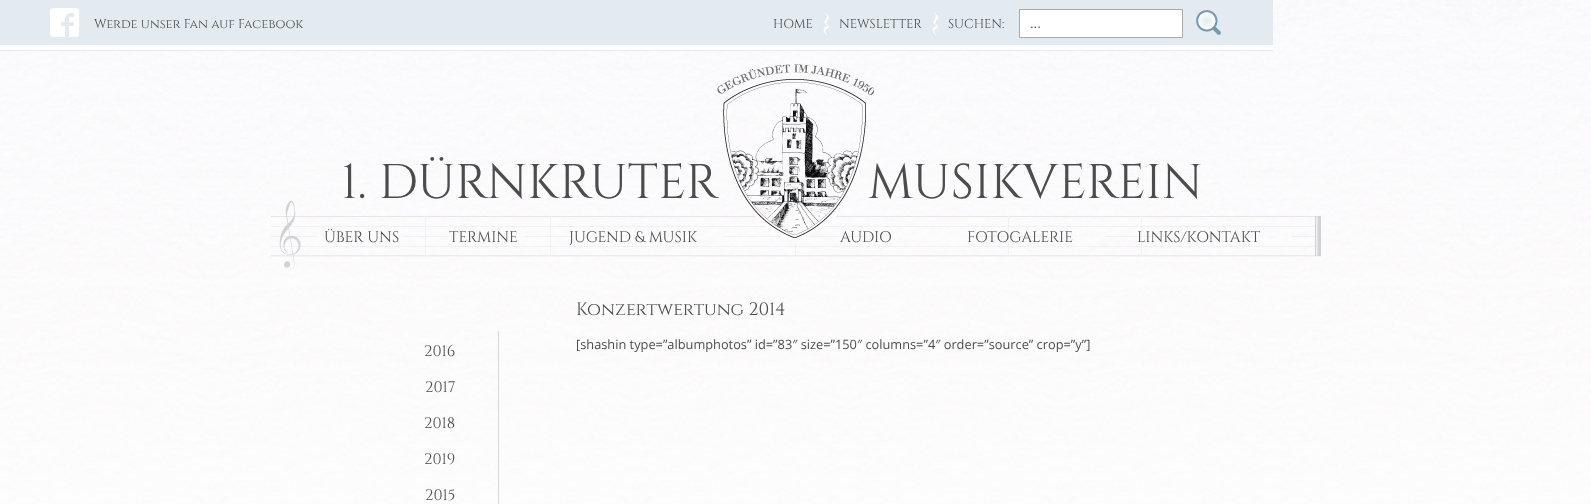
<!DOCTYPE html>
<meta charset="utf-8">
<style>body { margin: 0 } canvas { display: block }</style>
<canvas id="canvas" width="1591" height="504"></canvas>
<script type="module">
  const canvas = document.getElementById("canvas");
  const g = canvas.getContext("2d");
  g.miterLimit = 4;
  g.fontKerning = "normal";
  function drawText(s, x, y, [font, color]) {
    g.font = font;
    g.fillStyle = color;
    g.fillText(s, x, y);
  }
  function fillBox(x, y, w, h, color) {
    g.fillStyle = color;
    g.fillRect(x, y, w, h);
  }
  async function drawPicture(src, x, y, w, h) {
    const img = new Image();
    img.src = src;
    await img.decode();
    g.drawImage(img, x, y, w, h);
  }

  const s1 = ["12.8px Cinzel", "#4C4C4C"];
  const s2 = ["13px Liberation Sans", "#4C4C4C"];
  const s3 = ["48.75px Cinzel", "#4C4C4C"];
  const s4 = ["15.25px Cinzel", "#4C4C4C"];
  const s5 = ["18px Cinzel", "#4C4C4C"];
  const s6 = ["12.8px Open Sans", "#4C4C4C"];

  fillBox(0, 0, 1591, 504, "#FFFFFF");
  await drawPicture("pic1.png", 0, 0, 1591, 504);
  fillBox(0, 0, 1273, 45, "#E3EBF0");
  await drawPicture("pic2.png", 50, 8, 29, 29);
  drawText("Werde unser Fan auf Facebook", 94, 28, s1);
  drawText("HOME", 773, 28, s1);
  await drawPicture("pic3.png", 823, 12, 6, 24);
  drawText("NEWSLETTER", 839, 28, s1);
  await drawPicture("pic3.png", 932, 12, 6, 24);
  drawText("SUCHEN:", 948, 28, s1);
  g.fillStyle = "#FFFFFF";
  g.beginPath();
  g.rect(1019.5, 9.5, 163, 28);
  g.fill();
  g.strokeStyle = "#AAAAAA";
  g.stroke();
  drawText("...", 1030, 28, s2);
  await drawPicture("pic4.png", 1196, 10, 25, 25);
  fillBox(0, 45, 1273, 5, "#FFFFFF");
  fillBox(0, 50, 1273, 1, "#E3EBF0");
  await drawPicture("pic5.png", 717, 64, 157, 174);
  drawText("1. DÜRNKRUTER", 341, 198, s3);
  drawText("MUSIKVEREIN", 868, 198, s3);
  await drawPicture("pic6.png", 271, 200, 1050, 69);
  drawText("ÜBER UNS", 324, 242, s4);
  drawText("TERMINE", 449, 242, s4);
  drawText("JUGEND & MUSIK", 569, 242, s4);
  drawText("AUDIO", 840, 242, s4);
  drawText("FOTOGALERIE", 967, 242, s4);
  drawText("LINKS/KONTAKT", 1137, 242, s4);
  drawText("Konzertwertung 2014", 576, 315, s5);
  drawText("[shashin type=”albumphotos” id=”83″ size=”150″ columns=”4″ order=”source” crop=”y”]", 576, 349, s6);
  drawText("2016", 424, 356, s4);
  drawText("2017", 425, 392, s4);
  drawText("2018", 424, 428, s4);
  drawText("2019", 424, 464, s4);
  drawText("2015", 425, 500, s4);
  fillBox(498, 331, 1, 173, "rgba(177, 177, 177, 0.5)");
</script>
